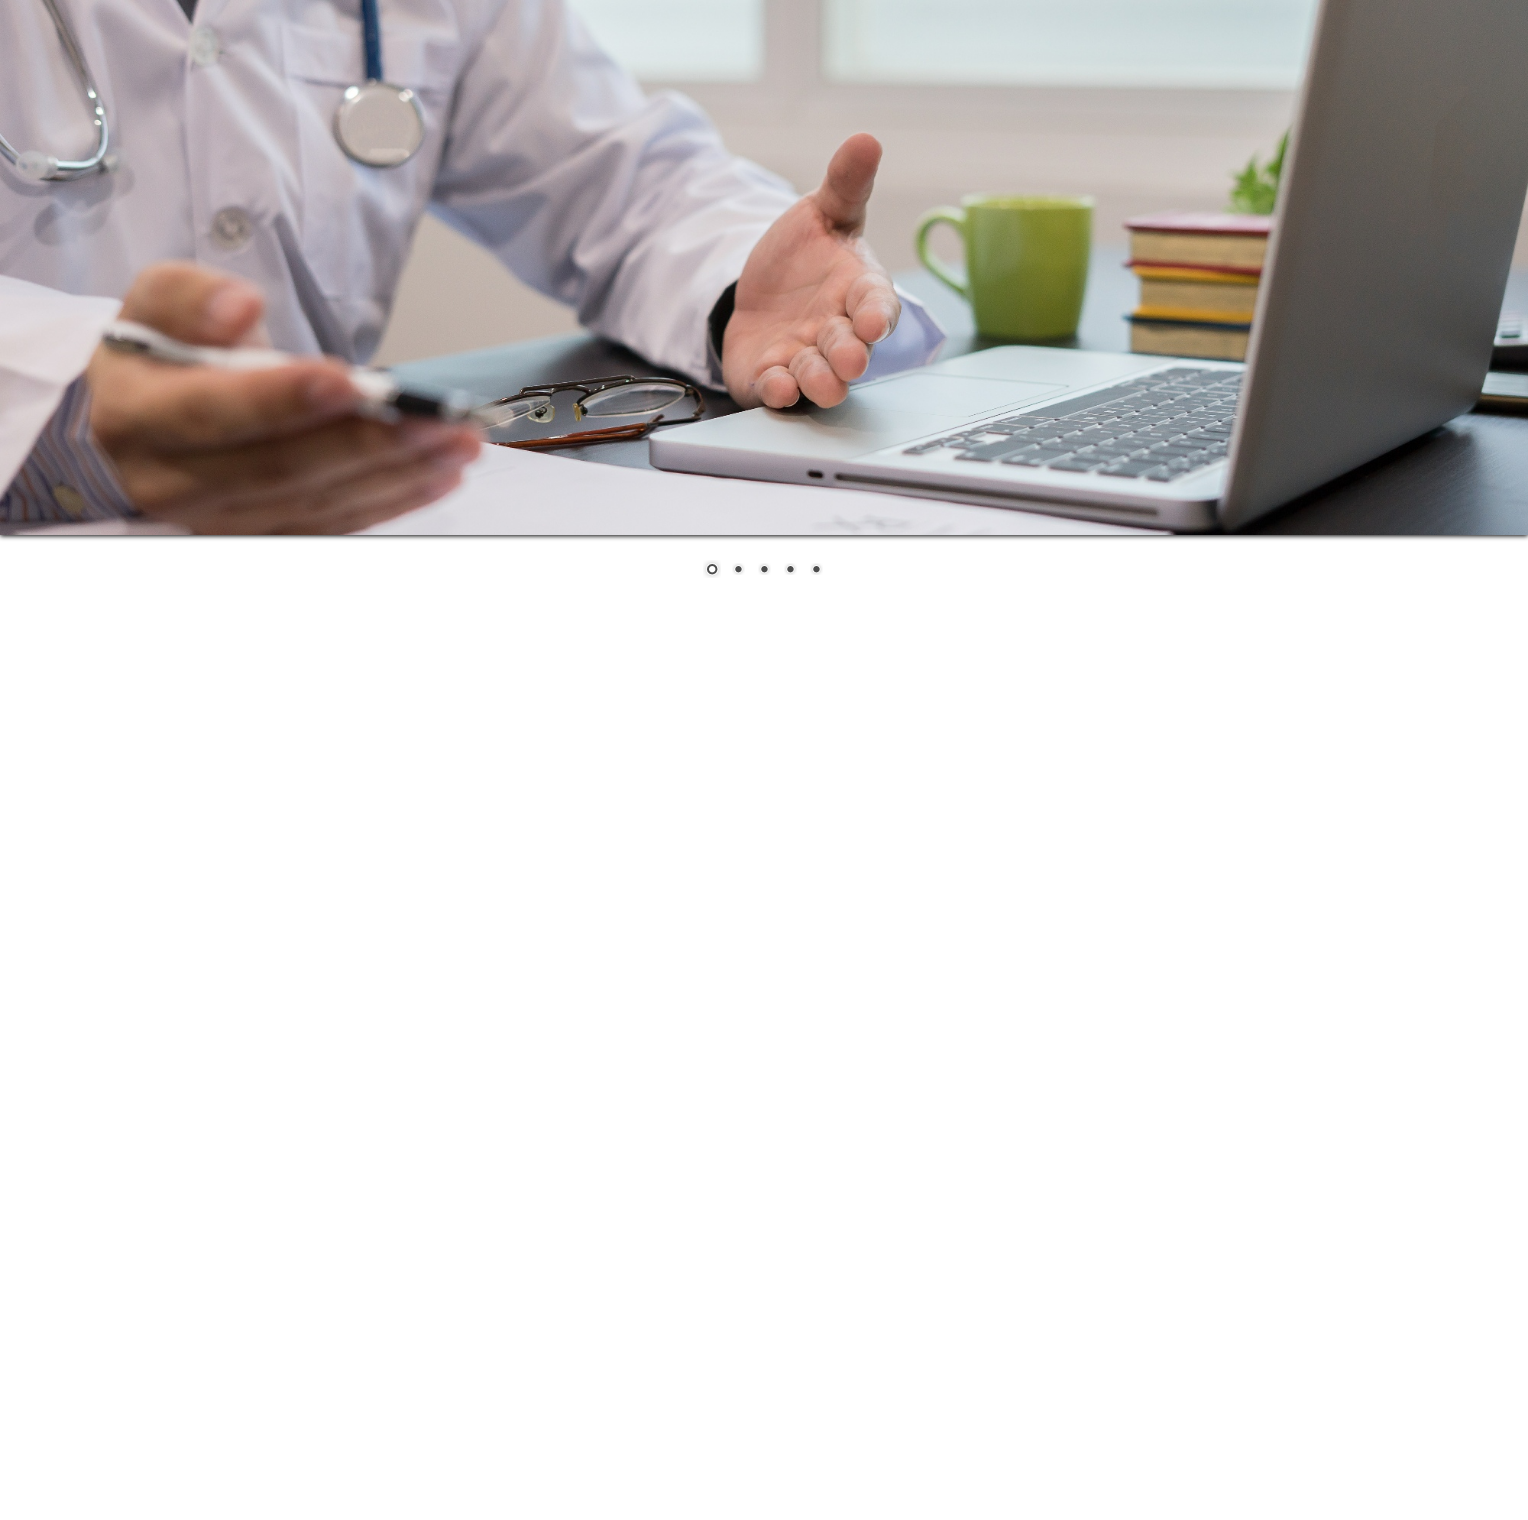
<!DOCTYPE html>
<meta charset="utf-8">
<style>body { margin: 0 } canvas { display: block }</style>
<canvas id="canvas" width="1528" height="1520"></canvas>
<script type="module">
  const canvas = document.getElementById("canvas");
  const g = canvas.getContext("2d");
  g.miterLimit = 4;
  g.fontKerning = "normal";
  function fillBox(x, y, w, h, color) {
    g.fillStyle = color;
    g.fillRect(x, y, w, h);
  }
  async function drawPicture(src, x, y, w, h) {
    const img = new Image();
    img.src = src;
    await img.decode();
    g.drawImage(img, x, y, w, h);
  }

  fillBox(0, 0, 1528, 1520, "#FFFFFF");
  g.fillStyle = "#000000";
  g.filter = "blur(2.5px)";
  g.beginPath();
  g.rect(0, 1, 1528, 535);
  g.fill();
  g.filter = "none";
  await drawPicture("pic1.png", 0, 0, 1528, 535);
  await drawPicture("pic2.png", 703, 560, 18, 18);
  await drawPicture("pic3.png", 732, 563, 13, 12);
  await drawPicture("pic3.png", 758, 563, 13, 12);
  await drawPicture("pic3.png", 784, 563, 13, 12);
  await drawPicture("pic3.png", 810, 563, 13, 12);
</script>
